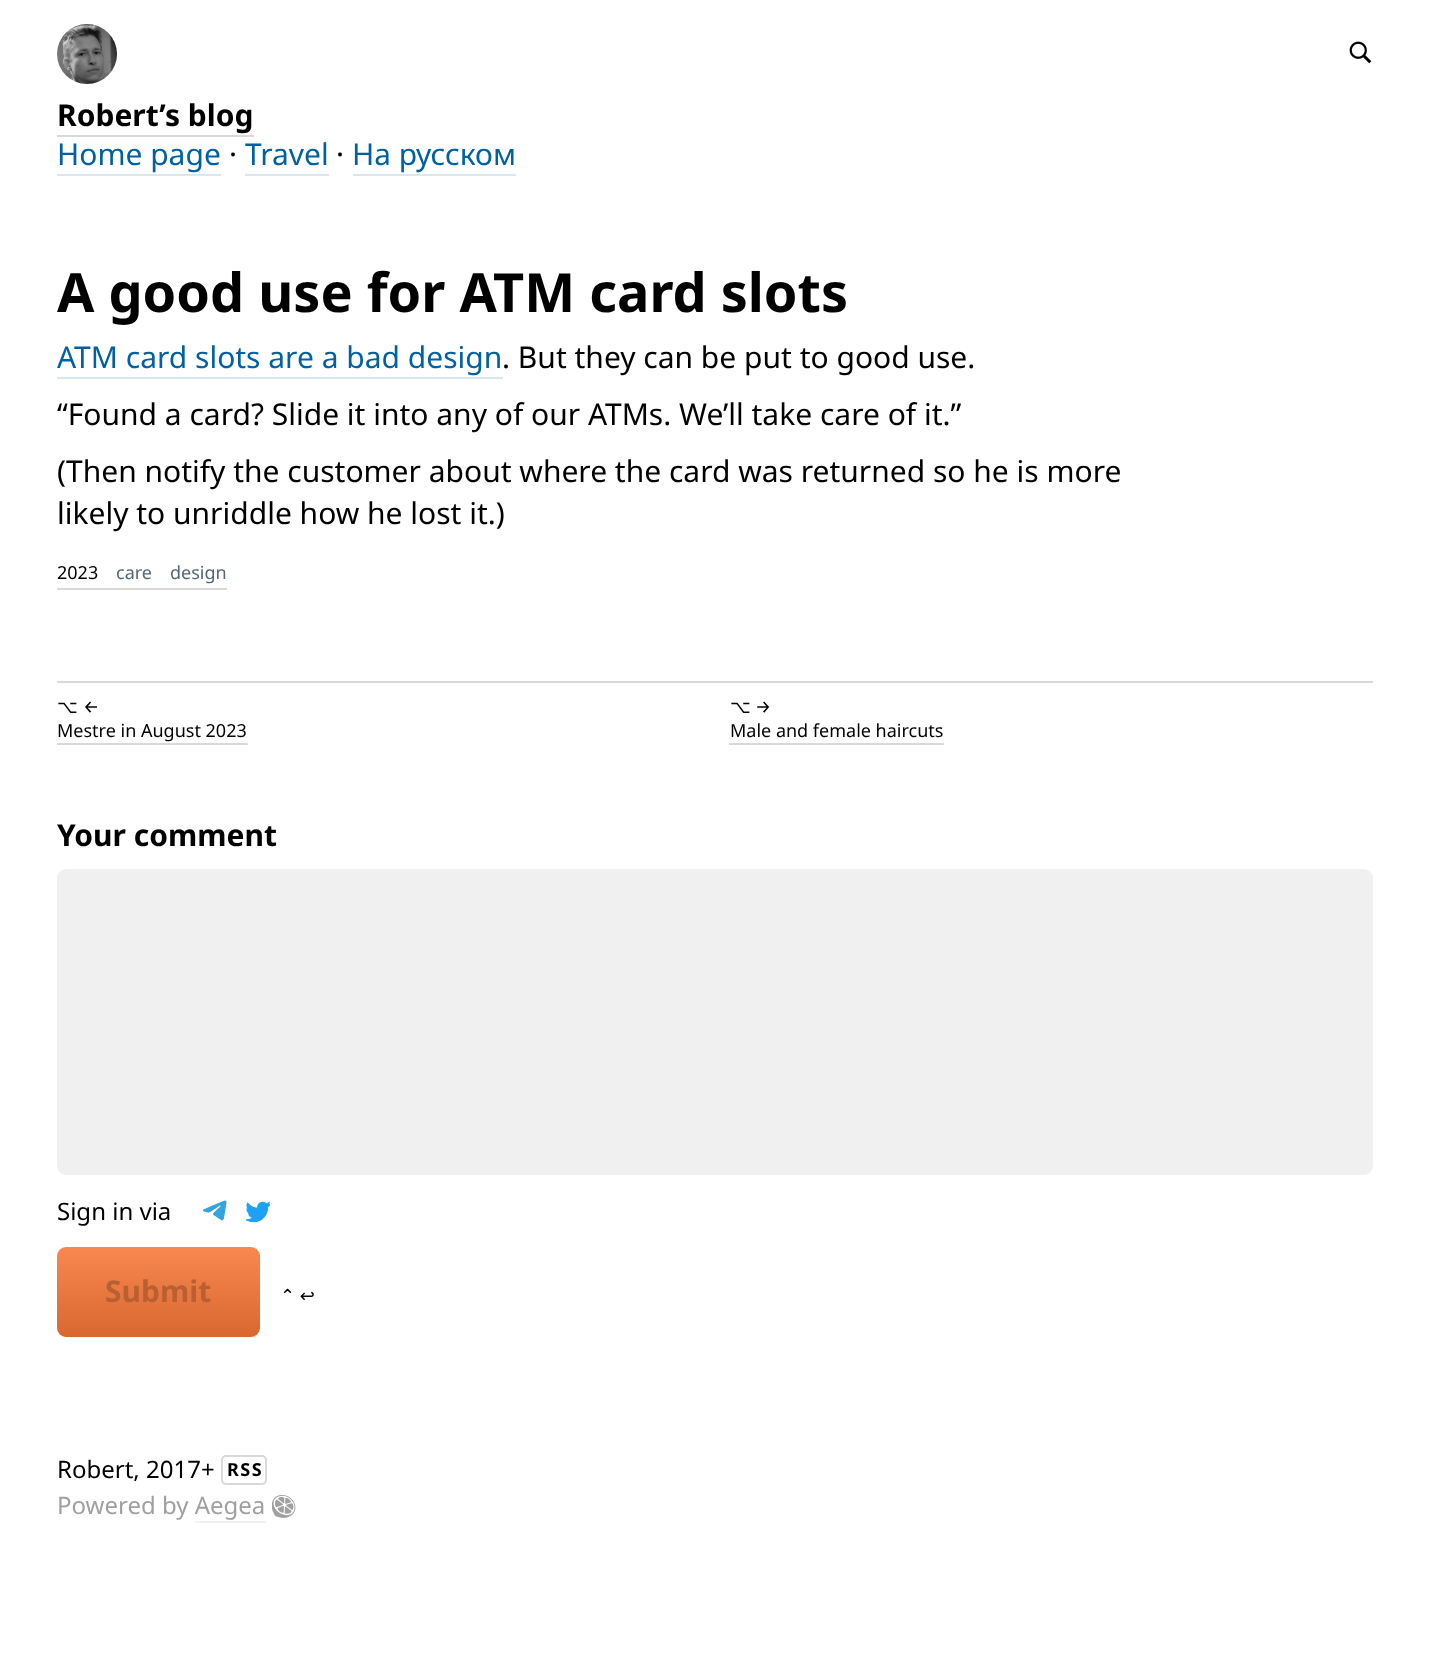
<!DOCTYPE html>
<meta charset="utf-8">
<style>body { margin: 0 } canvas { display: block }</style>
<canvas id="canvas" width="1429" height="1670"></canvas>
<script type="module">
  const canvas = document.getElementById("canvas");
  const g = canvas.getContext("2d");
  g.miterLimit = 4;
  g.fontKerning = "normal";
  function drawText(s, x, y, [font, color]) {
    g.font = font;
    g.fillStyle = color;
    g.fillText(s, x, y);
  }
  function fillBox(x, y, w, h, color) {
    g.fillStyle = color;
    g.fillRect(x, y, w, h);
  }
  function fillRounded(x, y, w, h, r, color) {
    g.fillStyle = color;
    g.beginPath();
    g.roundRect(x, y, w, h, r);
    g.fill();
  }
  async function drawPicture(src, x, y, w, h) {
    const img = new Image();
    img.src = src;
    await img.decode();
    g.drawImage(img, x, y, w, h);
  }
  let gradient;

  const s1 = ["bold 30px Noto Sans", "#000000"];
  const s2 = ["30px Noto Sans", "#0060A0"];
  const s3 = ["30px Noto Sans", "#000000"];
  const s4 = ["bold 54px Noto Sans", "#000000"];
  const s5 = ["18px Noto Sans", "#000000"];
  const s6 = ["18px Noto Sans", "#556677"];
  const s7 = ["18px DejaVu Sans", "#000000"];
  const s8 = ["18px Fira Sans", "#000000"];
  const s9 = ["24px Noto Sans", "#000000"];
  const s10 = ["bold 30px Noto Sans", "#B96033"];
  const s11 = ["bold 18px Noto Sans", "#000000"];
  const s12 = ["24px Noto Sans", "#A0A0A0"];

  fillBox(0, 0, 1429, 1670, "#FFFFFF");
  await drawPicture("pic1.png", 1349, 41, 23, 23);
  await drawPicture("pic2.png", 57, 24, 60, 60);
  drawText("Robert’s blog", 57, 126, s1);
  fillBox(57, 135, 197, 2, "#D9D9D9");
  drawText("Home page", 57, 165, s2);
  fillBox(57, 174, 164, 2, "#D9E7F1");
  drawText("·", 229, 165, s3);
  drawText("Travel", 245, 165, s2);
  fillBox(245, 174, 84, 2, "#D9E7F1");
  drawText("·", 336, 165, s3);
  drawText("На русском", 352, 165, s2);
  fillBox(353, 174, 163, 2, "#D9E7F1");
  drawText("A good use for ATM card slots", 57, 312, s4);
  drawText("ATM card slots are a bad design", 57, 368, s2);
  fillBox(57, 377, 446, 2, "#D9E7F1");
  drawText(". But they can be put to good use.", 502, 368, s3);
  drawText("“Found a card? Slide it into any of our ATMs. We’ll take care of it.”", 57, 425, s3);
  drawText("(Then notify the customer about where the card was returned so he is more", 57, 482, s3);
  drawText("likely to unriddle how he lost it.)", 57, 524, s3);
  fillBox(57, 588, 170, 2, "#D9D9D9");
  drawText("2023", 57, 579, s5);
  drawText("care", 116, 579, s6);
  drawText("design", 170, 579, s6);
  fillBox(57, 681, 1316, 2, "#D9D9D9");
  drawText("⌥", 57, 713, s7);
  drawText("←", 83, 713, s8);
  drawText("Mestre in August 2023", 57, 737, s5);
  fillBox(57, 743, 191, 2, "#D9D9D9");
  drawText("⌥", 730, 713, s7);
  drawText("→", 755, 713, s8);
  drawText("Male and female haircuts", 730, 737, s5);
  fillBox(729, 743, 215, 2, "#D9D9D9");
  drawText("Your comment", 57, 846, s1);
  fillRounded(57, 869, 1316, 306, 9, "#F0F0F0");
  drawText("Sign in via", 57, 1220, s9);
  await drawPicture("pic3.png", 203, 1200, 24, 21);
  await drawPicture("pic4.png", 246, 1201, 24, 22);
  gradient = g.createLinearGradient(158, 1247, 158, 1337);
  gradient.addColorStop(0, "#F88850");
  gradient.addColorStop(1, "#D86830");
  g.fillStyle = gradient;
  g.beginPath();
  g.roundRect(57, 1247, 203, 90, 9);
  g.fill();
  drawText("Submit", 105, 1302, s10);
  g.wordSpacing = "-1px";
  drawText("⌃ ↩", 280, 1302, s7);
  g.wordSpacing = "0px";
  drawText("Robert, 2017+", 57, 1478, s9);
  g.beginPath();
  g.roundRect(222, 1456, 44, 28, 4);
  g.strokeStyle = "#D9D9D9";
  g.lineWidth = 2;
  g.stroke();
  g.letterSpacing = "1.5px";
  drawText("RSS", 227, 1476, s11);
  g.letterSpacing = "0px";
  drawText("Powered by Aegea", 57, 1514, s12);
  await drawPicture("pic5.png", 272, 1495, 24, 23);
  fillBox(195, 1521, 71, 2, "#F1F1F1");
</script>
